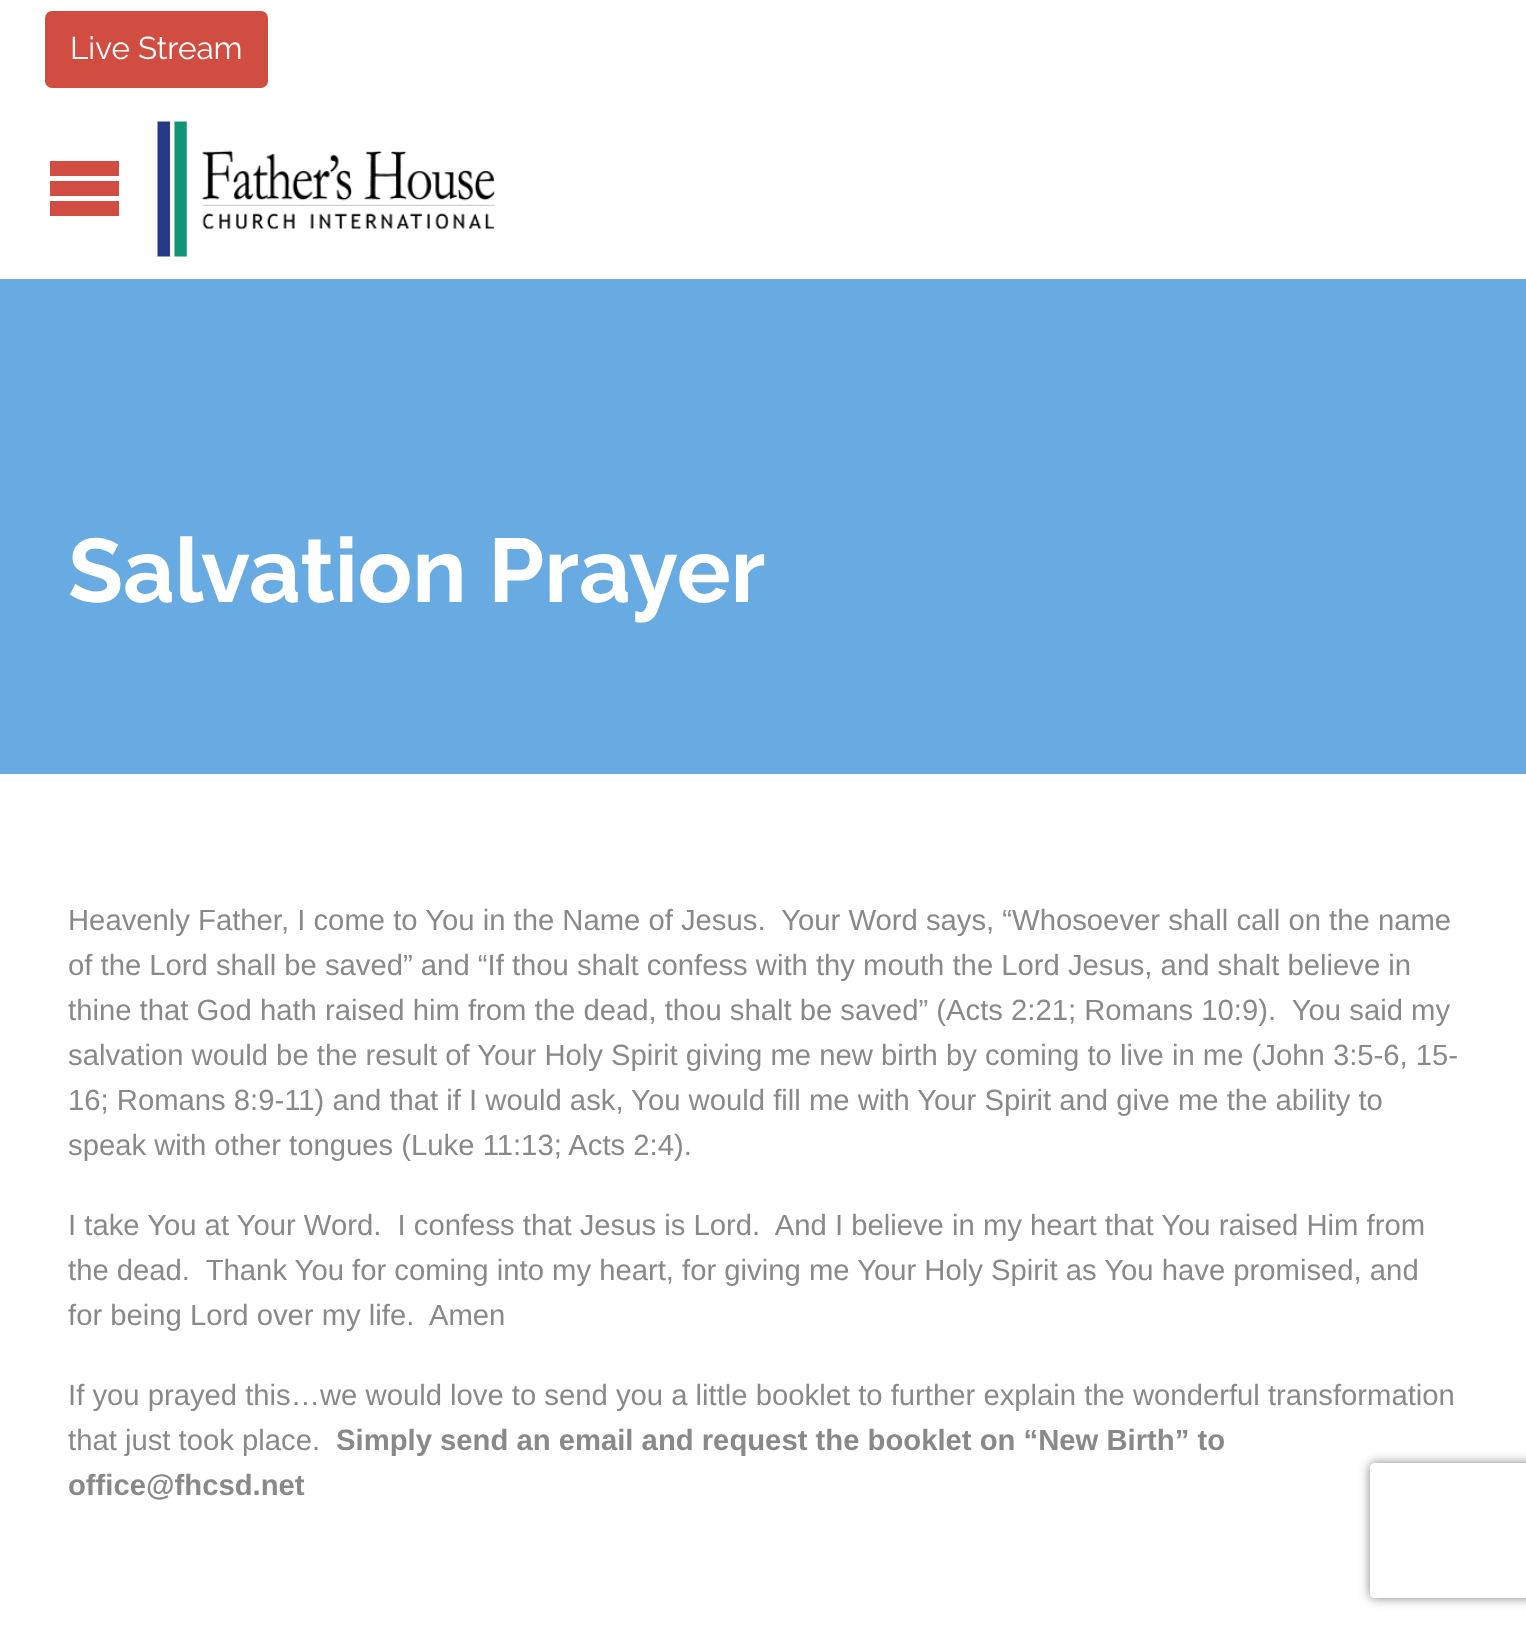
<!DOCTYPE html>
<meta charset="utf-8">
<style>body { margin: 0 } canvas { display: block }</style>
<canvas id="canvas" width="1526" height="1629"></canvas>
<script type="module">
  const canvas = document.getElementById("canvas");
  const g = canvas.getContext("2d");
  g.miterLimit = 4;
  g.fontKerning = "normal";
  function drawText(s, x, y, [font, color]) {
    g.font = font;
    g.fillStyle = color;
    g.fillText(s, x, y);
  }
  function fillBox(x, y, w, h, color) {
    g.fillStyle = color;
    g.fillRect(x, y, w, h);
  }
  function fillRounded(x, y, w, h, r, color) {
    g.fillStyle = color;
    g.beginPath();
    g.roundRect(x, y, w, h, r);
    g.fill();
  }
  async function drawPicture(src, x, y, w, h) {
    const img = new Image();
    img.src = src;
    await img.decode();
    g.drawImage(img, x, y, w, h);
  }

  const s1 = ["31.5px Raleway", "#FFFFFF"];
  const s2 = ["bold 90px Raleway", "#FFFFFF"];
  const s3 = ["29.25px Liberation Sans", "#898989"];
  const s4 = ["bold 29.25px Liberation Sans", "#898989"];

  fillBox(0, 0, 1526, 1629, "#FFFFFF");
  fillRounded(45, 11, 223, 77, 7, "#D14D42");
  drawText("Live Stream", 70, 59, s1);
  await drawPicture("pic1.png", 157, 121, 338, 136);
  fillBox(0, 279, 1526, 495, "#68ABE2");
  drawText("Salvation Prayer", 68, 602, s2);
  drawText("Heavenly Father, I come to You in the Name of Jesus.  Your Word says, “Whosoever shall call on the name", 68, 930, s3);
  drawText("of the Lord shall be saved” and “If thou shalt confess with thy mouth the Lord Jesus, and shalt believe in", 68, 975, s3);
  drawText("thine that God hath raised him from the dead, thou shalt be saved” (Acts 2:21; Romans 10:9).  You said my", 68, 1020, s3);
  drawText("salvation would be the result of Your Holy Spirit giving me new birth by coming to live in me (John 3:5-6, 15-", 68, 1065, s3);
  drawText("16; Romans 8:9-11) and that if I would ask, You would fill me with Your Spirit and give me the ability to", 68, 1110, s3);
  drawText("speak with other tongues (Luke 11:13; Acts 2:4).", 68, 1155, s3);
  drawText("I take You at Your Word.  I confess that Jesus is Lord.  And I believe in my heart that You raised Him from", 68, 1235, s3);
  drawText("the dead.  Thank You for coming into my heart, for giving me Your Holy Spirit as You have promised, and", 68, 1280, s3);
  drawText("for being Lord over my life.  Amen", 68, 1325, s3);
  drawText("If you prayed this…we would love to send you a little booklet to further explain the wonderful transformation", 68, 1405, s3);
  drawText("that just took place.", 68, 1450, s3);
  drawText("Simply send an email and request the booklet on “New Birth” to", 336, 1450, s4);
  drawText("office@fhcsd.net", 68, 1495, s4);
  g.fillStyle = "#D14D42";
  g.beginPath();
  g.moveTo(50, 161);
  g.lineTo(119, 161);
  g.lineTo(119, 176);
  g.lineTo(50, 176);
  g.closePath();
  g.moveTo(50, 181);
  g.lineTo(119, 181);
  g.lineTo(119, 196);
  g.lineTo(50, 196);
  g.closePath();
  g.moveTo(50, 201);
  g.lineTo(119, 201);
  g.lineTo(119, 216);
  g.lineTo(50, 216);
  g.closePath();
  g.fill();
  g.save();
  g.beginPath();
  g.moveTo(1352, 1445);
  g.lineTo(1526, 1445);
  g.lineTo(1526, 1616);
  g.lineTo(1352, 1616);
  g.closePath();
  g.moveTo(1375, 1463);
  g.lineTo(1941, 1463);
  g.bezierCurveTo(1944, 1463, 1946, 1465, 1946, 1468);
  g.lineTo(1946, 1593);
  g.bezierCurveTo(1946, 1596, 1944, 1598, 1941, 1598);
  g.lineTo(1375, 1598);
  g.bezierCurveTo(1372, 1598, 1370, 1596, 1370, 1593);
  g.lineTo(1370, 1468);
  g.bezierCurveTo(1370, 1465, 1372, 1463, 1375, 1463);
  g.closePath();
  g.clip("evenodd");
  g.fillStyle = "#808080";
  g.filter = "blur(5.5px)";
  g.beginPath();
  g.roundRect(1370, 1463, 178, 135, 5);
  g.fill();
  g.filter = "none";
  g.restore();
</script>
